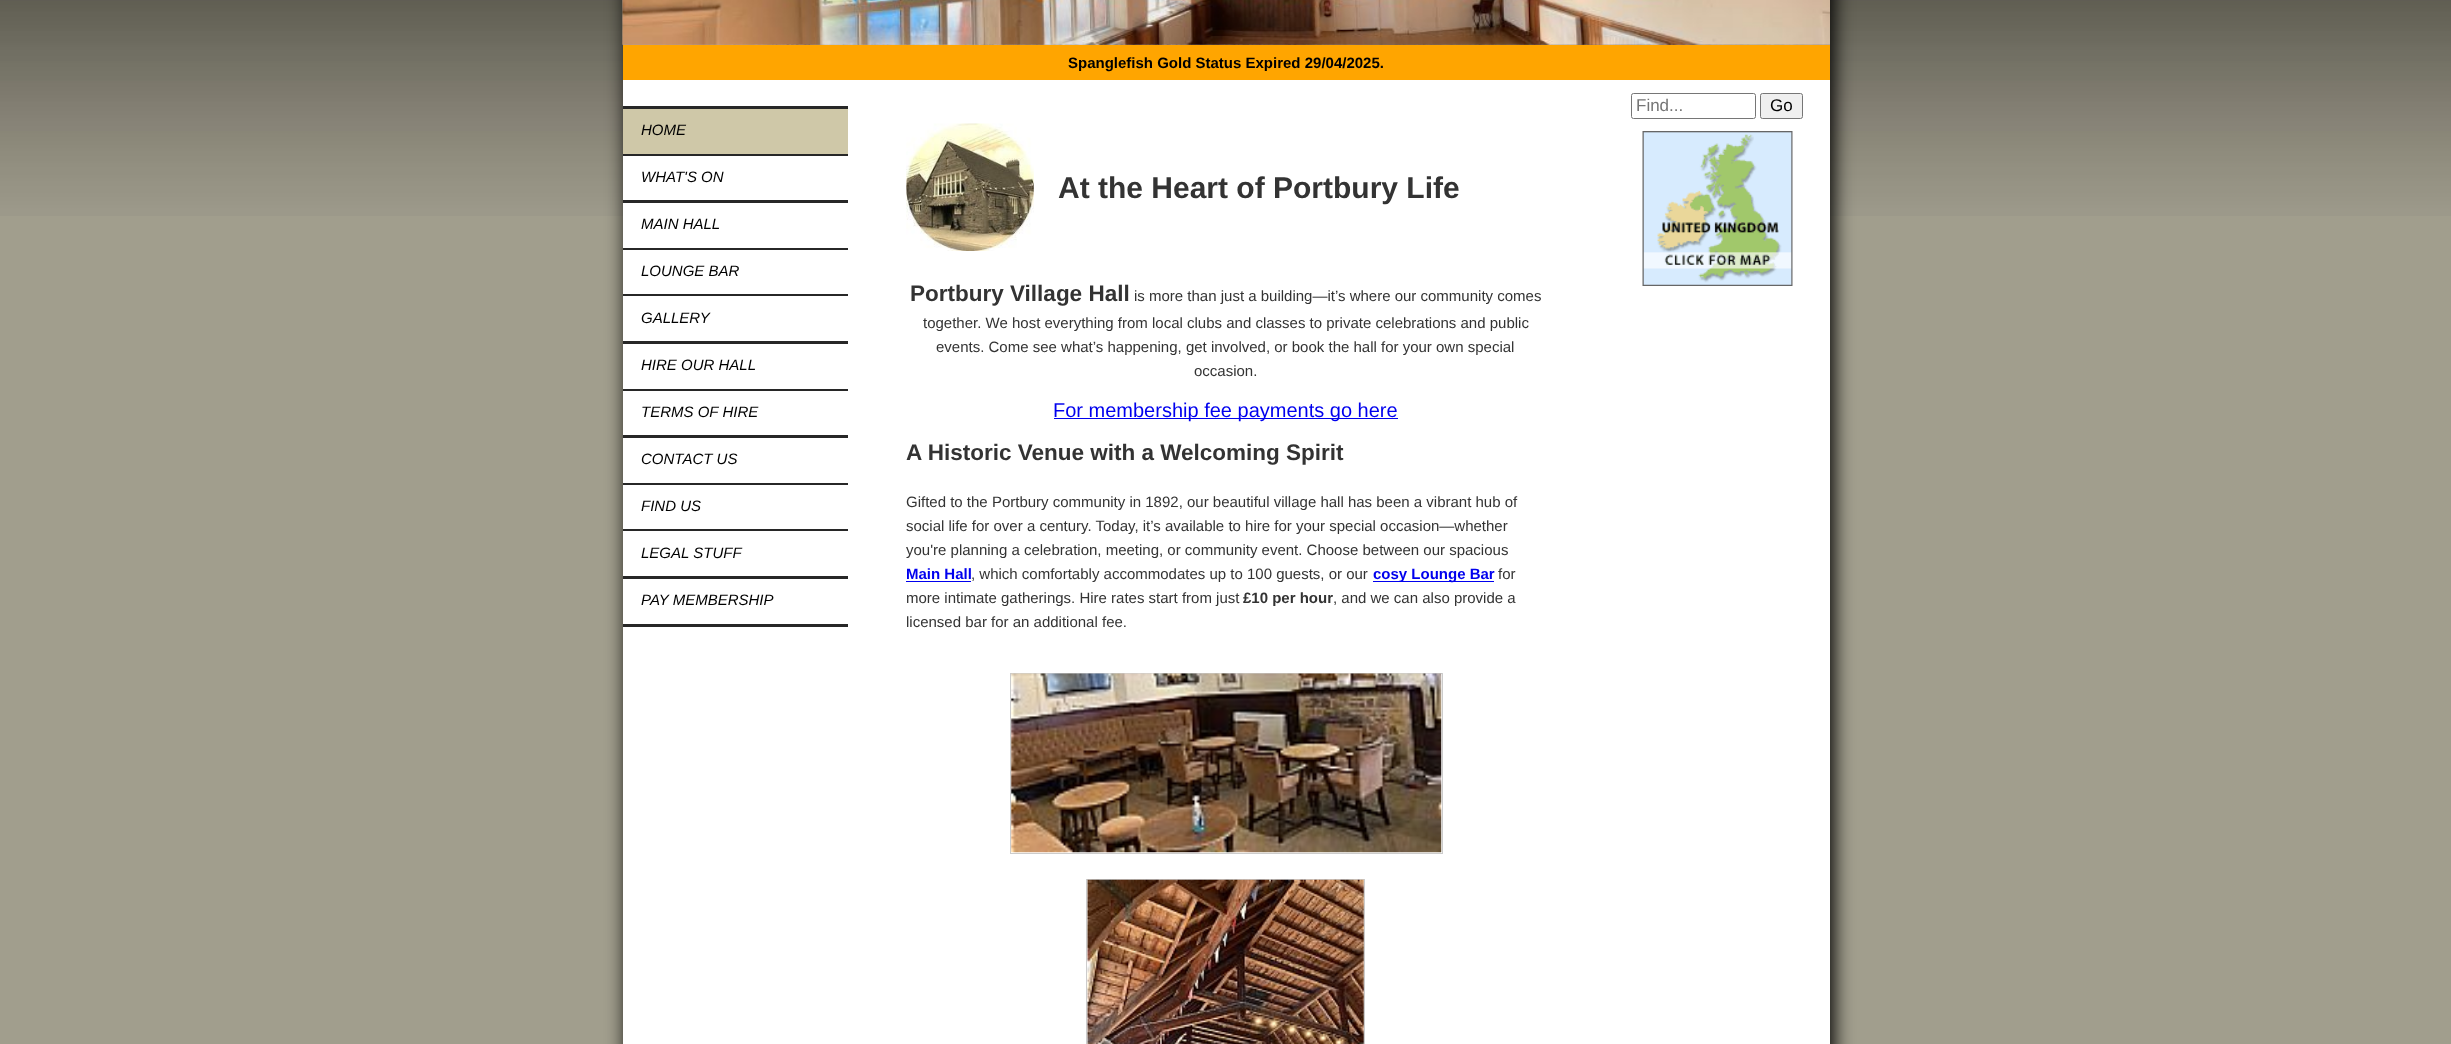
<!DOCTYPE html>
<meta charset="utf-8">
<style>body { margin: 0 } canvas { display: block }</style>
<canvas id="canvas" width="2451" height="1044"></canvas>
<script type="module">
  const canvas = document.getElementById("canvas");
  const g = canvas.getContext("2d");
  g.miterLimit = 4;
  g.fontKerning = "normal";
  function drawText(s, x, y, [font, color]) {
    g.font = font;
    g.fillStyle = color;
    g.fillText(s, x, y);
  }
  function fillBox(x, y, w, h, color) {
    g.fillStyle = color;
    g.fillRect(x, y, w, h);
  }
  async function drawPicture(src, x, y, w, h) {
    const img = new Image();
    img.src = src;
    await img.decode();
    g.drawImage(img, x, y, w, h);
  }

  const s1 = ["bold 15px Liberation Sans", "#000000"];
  const s2 = ["17px Liberation Sans", "#757575"];
  const s3 = ["17px Liberation Sans", "#000000"];
  const s4 = ["italic 15px Liberation Sans", "#000000"];
  const s5 = ["bold 30px Liberation Sans", "#333333"];
  const s6 = ["bold 22.5px Liberation Sans", "#333333"];
  const s7 = ["15px Liberation Sans", "#333333"];
  const s8 = ["20px Liberation Sans", "#0000EE"];
  const s9 = ["bold 15px Liberation Sans", "#0000EE"];
  const s10 = ["bold 15px Liberation Sans", "#333333"];

  fillBox(0, 0, 2451, 1044, "#A19E8D");
  await drawPicture("pic1.png", 0, 0, 2451, 216);
  g.fillStyle = "#000000";
  g.filter = "blur(9.5px)";
  g.beginPath();
  g.rect(626, -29, 1208, 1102);
  g.fill();
  g.filter = "none";
  fillBox(623, 44, 1207, 1000, "#FFFFFF");
  await drawPicture("pic2.png", 622, 0, 1208, 45);
  await drawPicture("pic3.png", 622, 0, 1208, 45);
  fillBox(623, 45, 1207, 35, "#FFA500");
  drawText("Spanglefish Gold Status Expired 29/04/2025.", 1068, 68, s1);
  g.beginPath();
  g.roundRect(1631.5, 93.5, 124, 25, 2);
  g.strokeStyle = "#767676";
  g.stroke();
  drawText("Find...", 1636, 111, s2);
  g.fillStyle = "#EFEFEF";
  g.beginPath();
  g.roundRect(1760.5, 93.5, 42, 25, 2);
  g.fill();
  g.stroke();
  drawText("Go", 1770, 111, s3);
  await drawPicture("pic4.png", 1642, 131, 151, 155);
  fillBox(623, 106, 225, 473, "#272727");
  fillBox(623, 624, 225, 3, "#272727");
  fillBox(623, 109, 225, 45, "#CFC8A8");
  drawText("HOME", 641, 135, s4);
  fillBox(623, 156, 225, 44, "#FFFFFF");
  drawText("WHAT'S ON", 641, 182, s4);
  fillBox(623, 203, 225, 45, "#FFFFFF");
  drawText("MAIN HALL", 641, 229, s4);
  fillBox(623, 250, 225, 44, "#FFFFFF");
  drawText("LOUNGE BAR", 641, 276, s4);
  fillBox(623, 296, 225, 45, "#FFFFFF");
  drawText("GALLERY", 641, 323, s4);
  fillBox(623, 344, 225, 45, "#FFFFFF");
  drawText("HIRE OUR HALL", 641, 370, s4);
  fillBox(623, 391, 225, 44, "#FFFFFF");
  drawText("TERMS OF HIRE", 641, 417, s4);
  fillBox(623, 438, 225, 45, "#FFFFFF");
  drawText("CONTACT US", 641, 464, s4);
  fillBox(623, 485, 225, 44, "#FFFFFF");
  drawText("FIND US", 641, 511, s4);
  fillBox(623, 531, 225, 45, "#FFFFFF");
  drawText("LEGAL STUFF", 641, 558, s4);
  drawText("PAY MEMBERSHIP", 641, 605, s4);
  await drawPicture("pic5.png", 906, 123, 128, 128);
  drawText("At the Heart of Portbury Life", 1058, 198, s5);
  drawText("Portbury Village Hall", 910, 301, s6);
  drawText("is more than just a building—it’s where our community comes", 1134, 301, s7);
  drawText("together. We host everything from local clubs and classes to private celebrations and public", 923, 328, s7);
  drawText("events. Come see what’s happening, get involved, or book the hall for your own special", 936, 352, s7);
  drawText("occasion.", 1194, 376, s7);
  fillBox(1054, 418, 344, 1, "#0000EE");
  drawText("For membership fee payments go here", 1053, 417, s8);
  drawText("A Historic Venue with a Welcoming Spirit", 906, 460, s6);
  drawText("Gifted to the Portbury community in 1892, our beautiful village hall has been a vibrant hub of", 906, 507, s7);
  drawText("social life for over a century. Today, it’s available to hire for your special occasion—whether", 906, 531, s7);
  drawText("you're planning a celebration, meeting, or community event. Choose between our spacious", 906, 555, s7);
  drawText("Main Hall", 906, 579, s9);
  fillBox(906, 581, 65, 1, "#0000EE");
  drawText(", which comfortably accommodates up to 100 guests, or our", 971, 579, s7);
  fillBox(1373, 581, 121, 1, "#0000EE");
  drawText("cosy Lounge Bar", 1373, 579, s9);
  drawText("for", 1498, 579, s7);
  drawText("more intimate gatherings. Hire rates start from just", 906, 603, s7);
  drawText("£10 per hour", 1243, 603, s10);
  drawText(", and we can also provide a", 1333, 603, s7);
  drawText("licensed bar for an additional fee.", 906, 627, s7);
  g.strokeStyle = "#CCCCCC";
  g.strokeRect(1010.5, 673.5, 432, 180);
  await drawPicture("pic6.png", 1011, 673, 431, 180);
  g.strokeRect(1086.5, 879.5, 278, 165);
  await drawPicture("pic7.png", 1087, 879, 277, 165);
</script>
